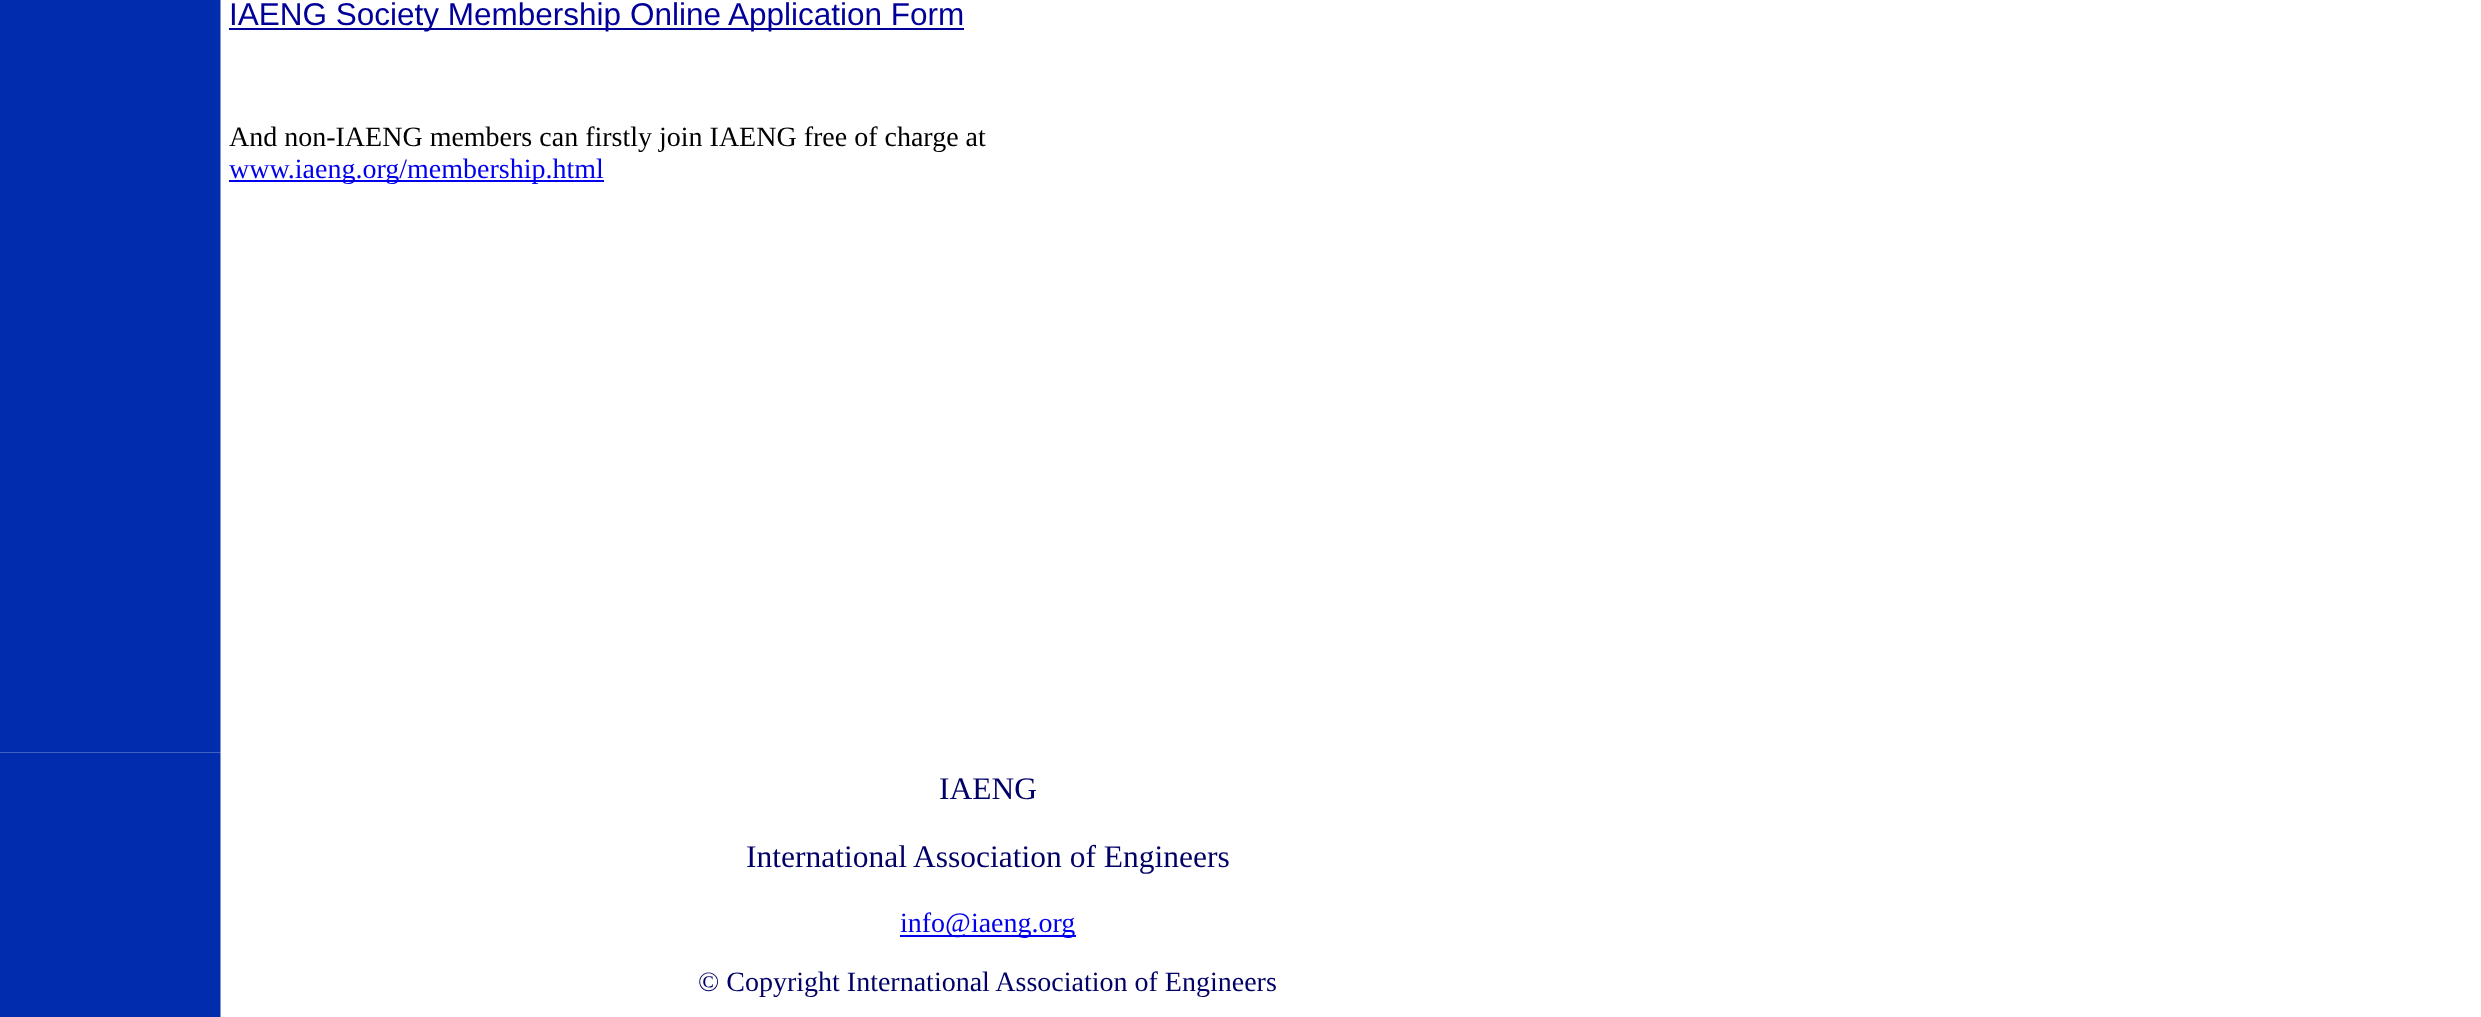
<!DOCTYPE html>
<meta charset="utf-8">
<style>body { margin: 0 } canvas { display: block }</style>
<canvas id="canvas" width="2481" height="1017"></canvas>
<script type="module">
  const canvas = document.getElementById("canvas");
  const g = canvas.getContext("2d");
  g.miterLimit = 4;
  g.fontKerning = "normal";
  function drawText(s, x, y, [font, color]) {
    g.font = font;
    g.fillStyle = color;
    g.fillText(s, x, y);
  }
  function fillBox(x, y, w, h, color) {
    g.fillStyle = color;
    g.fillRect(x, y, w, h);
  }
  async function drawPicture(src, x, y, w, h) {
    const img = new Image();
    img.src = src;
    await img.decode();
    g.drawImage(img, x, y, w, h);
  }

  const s1 = ["31.5px Liberation Sans", "#000099"];
  const s2 = ["28px Liberation Serif", "#000000"];
  const s3 = ["28px Liberation Serif", "#0000EE"];
  const s4 = ["31.5px Liberation Serif", "#000066"];
  const s5 = ["28px Liberation Serif", "#000066"];

  fillBox(0, 0, 2481, 1017, "#FFFFFF");
  await drawPicture("pic1.png", 0, 0, 221, 753);
  fillBox(229, 28, 735, 2, "#000099");
  drawText("IAENG Society Membership Online Application Form", 229, 25, s1);
  drawText("And non-IAENG members can firstly join IAENG free of charge at", 229, 146, s2);
  fillBox(229, 180, 375, 2, "#0000EE");
  drawText("www.iaeng.org/membership.html", 229, 178, s3);
  await drawPicture("pic2.png", 0, 752, 221, 265);
  drawText("IAENG", 939, 799, s4);
  drawText("International Association of Engineers", 746, 867, s4);
  fillBox(900, 935, 176, 2, "#0000EE");
  drawText("info@iaeng.org", 900, 932, s3);
  drawText("© Copyright International Association of Engineers", 698, 991, s5);
</script>
